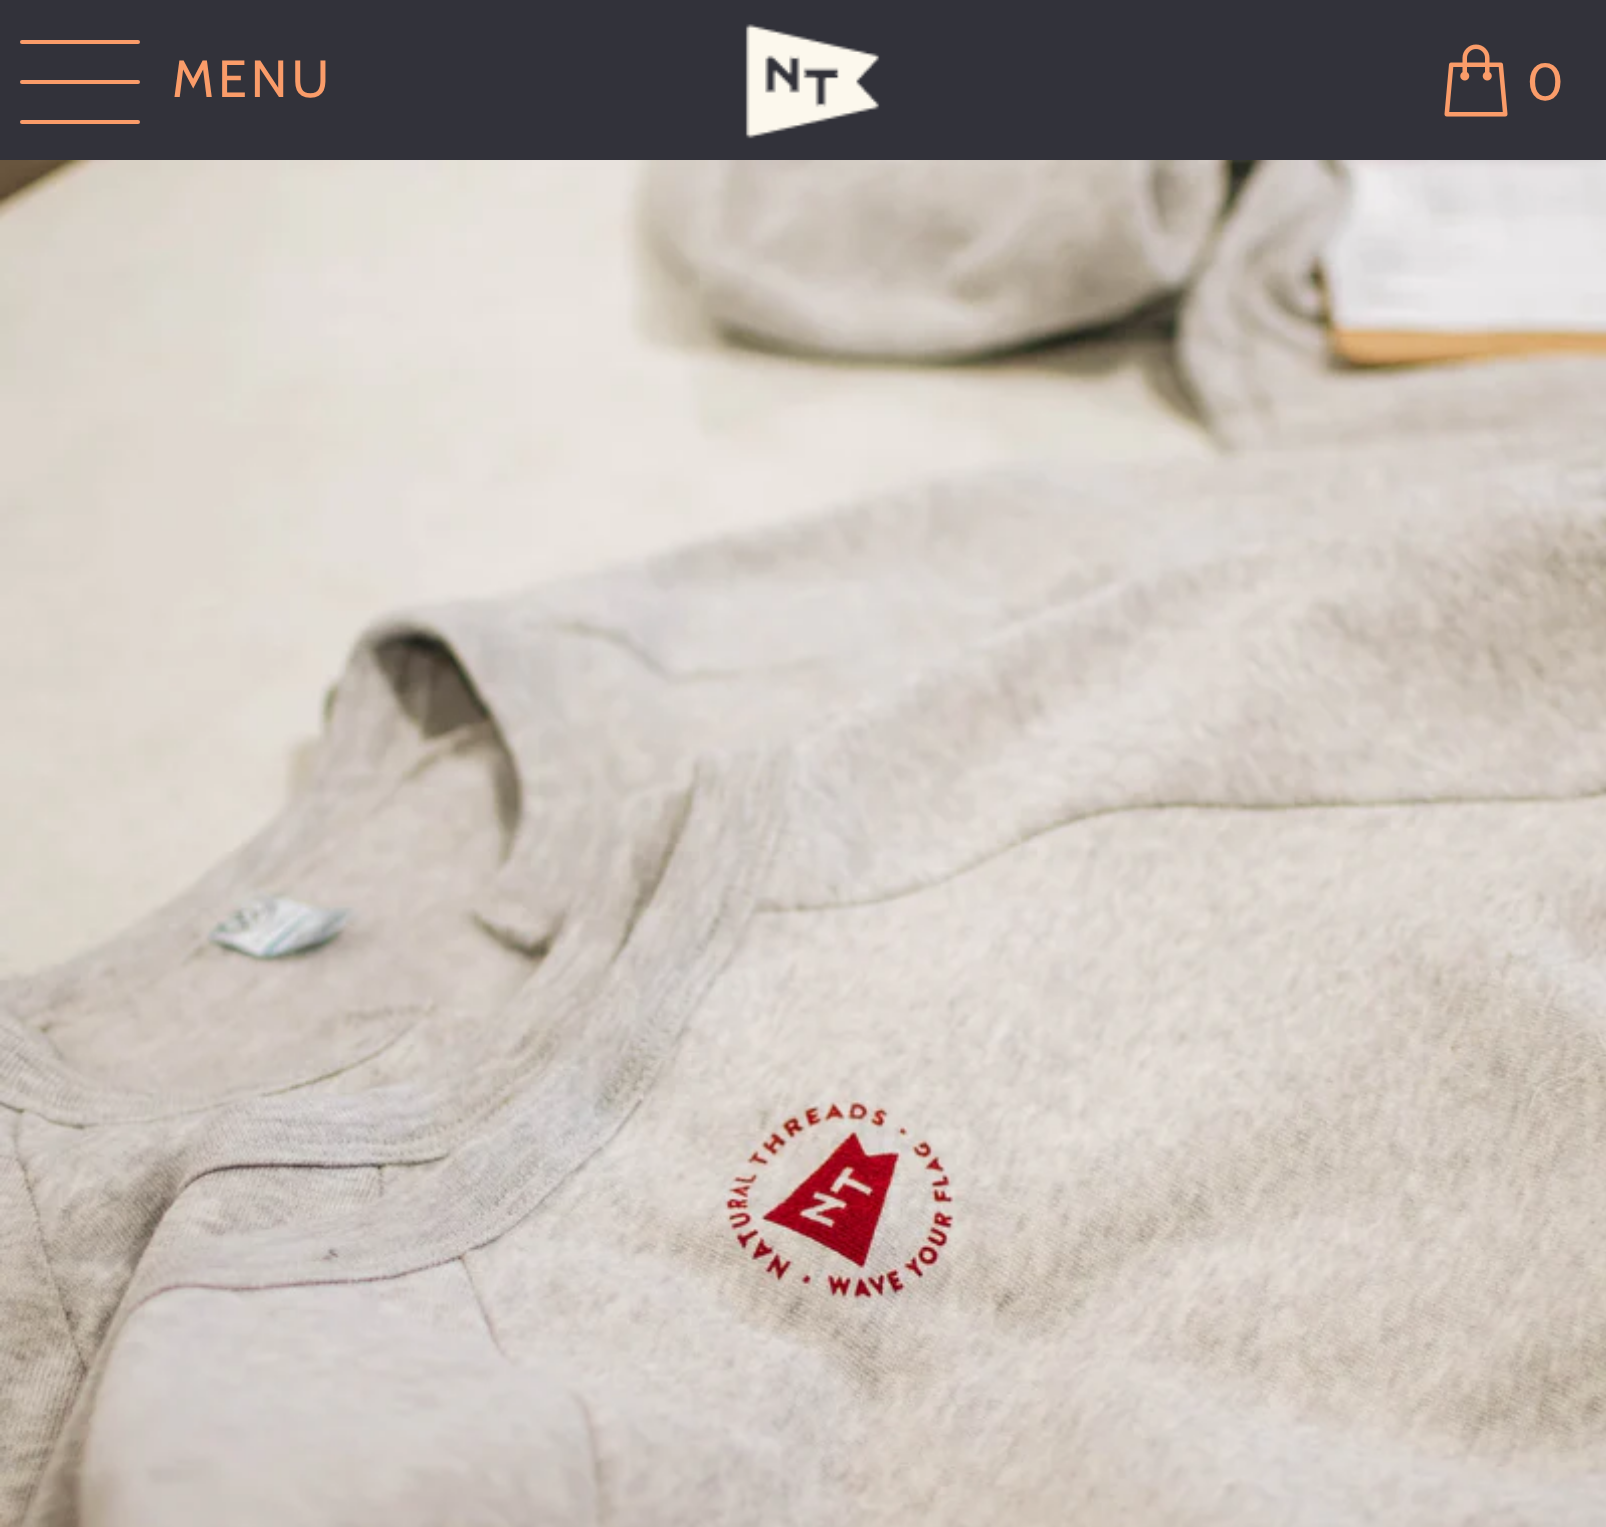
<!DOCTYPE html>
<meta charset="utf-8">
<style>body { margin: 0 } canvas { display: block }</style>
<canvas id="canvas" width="1606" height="1527"></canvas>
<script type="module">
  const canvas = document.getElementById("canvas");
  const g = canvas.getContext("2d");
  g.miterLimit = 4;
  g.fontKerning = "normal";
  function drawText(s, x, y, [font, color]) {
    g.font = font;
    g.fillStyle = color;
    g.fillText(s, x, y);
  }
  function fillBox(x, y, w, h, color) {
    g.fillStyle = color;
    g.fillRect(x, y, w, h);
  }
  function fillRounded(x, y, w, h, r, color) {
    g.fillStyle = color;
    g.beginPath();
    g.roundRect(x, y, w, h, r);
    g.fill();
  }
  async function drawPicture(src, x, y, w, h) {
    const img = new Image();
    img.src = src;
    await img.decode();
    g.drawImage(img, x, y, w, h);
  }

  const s1 = ["52px Cabin", "#FA9C69"];

  fillBox(0, 0, 1606, 1527, "#FFFFFF");
  fillBox(0, 0, 1606, 160, "#32323A");
  fillRounded(20, 40, 120, 4, 2, "#FA9C69");
  fillRounded(20, 80, 120, 4, 2, "#FA9C69");
  fillRounded(20, 120, 120, 4, 2, "#FA9C69");
  g.letterSpacing = "4px";
  drawText("MENU", 172, 97, s1);
  await drawPicture("pic1.png", 745, 24, 135, 115);
  await drawPicture("pic2.png", 1444, 44, 64, 73);
  drawText("0", 1527, 100, s1);
  await drawPicture("pic3.png", 0, 160, 1606, 1367);
</script>
